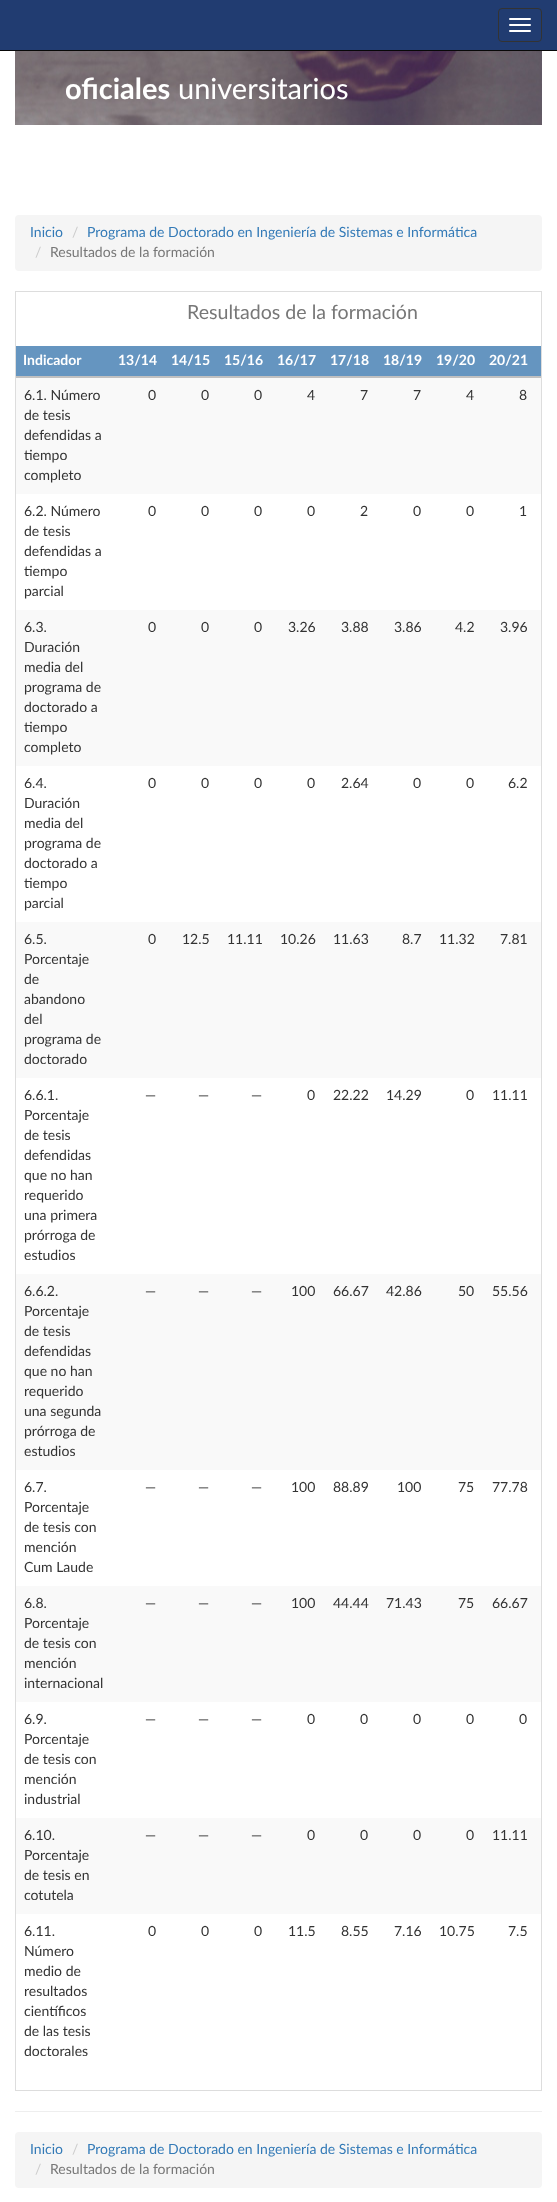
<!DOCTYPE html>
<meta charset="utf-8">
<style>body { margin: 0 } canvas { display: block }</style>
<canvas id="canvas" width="557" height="2202"></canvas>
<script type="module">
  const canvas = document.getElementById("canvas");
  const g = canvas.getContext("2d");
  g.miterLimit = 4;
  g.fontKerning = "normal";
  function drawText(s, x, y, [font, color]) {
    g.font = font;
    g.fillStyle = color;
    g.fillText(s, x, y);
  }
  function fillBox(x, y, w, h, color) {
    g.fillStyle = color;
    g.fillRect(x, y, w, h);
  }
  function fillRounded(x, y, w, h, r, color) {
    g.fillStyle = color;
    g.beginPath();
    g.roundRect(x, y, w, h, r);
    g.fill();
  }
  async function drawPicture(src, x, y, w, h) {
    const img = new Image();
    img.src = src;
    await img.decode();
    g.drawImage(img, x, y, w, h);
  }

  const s1 = ["bold 29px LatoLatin", "#FFFFFF"];
  const s2 = ["29px LatoLatin", "#FFFFFF"];
  const s3 = ["14px LatoLatin", "#337AB7"];
  const s4 = ["14px LatoLatin", "#CCCCCC"];
  const s5 = ["14px LatoLatin", "#777777"];
  const s6 = ["19.6px LatoLatin", "#777777"];
  const s7 = ["bold 14px LatoLatin", "#FFFFFF"];
  const s8 = ["14px LatoLatin", "#333333"];

  fillBox(0, 0, 557, 2202, "#FFFFFF");
  fillBox(0, 0, 557, 50, "#213C71");
  fillBox(0, 50, 557, 1, "#080808");
  g.beginPath();
  g.roundRect(498.5, 8.5, 43, 33, 3.5);
  g.strokeStyle = "#333333";
  g.stroke();
  fillRounded(509, 18, 22, 2, 1, "#FFFFFF");
  fillRounded(509, 24, 22, 2, 1, "#FFFFFF");
  fillRounded(509, 30, 22, 2, 1, "#FFFFFF");
  await drawPicture("pic1.png", 15, 51, 527, 74);
  drawText("oficiales", 65, 99, s1);
  drawText("universitarios", 178, 99, s2);
  fillRounded(15, 215, 527, 56, 4, "#F5F5F5");
  drawText("Inicio", 30, 237, s3);
  drawText("/", 72, 237, s4);
  drawText("Programa de Doctorado en Ingeniería de Sistemas e Informática", 87, 237, s3);
  drawText("/", 35, 257, s4);
  drawText("Resultados de la formación", 50, 257, s5);
  g.strokeStyle = "#DDDDDD";
  g.strokeRect(15.5, 291.5, 526, 1799);
  drawText("Resultados de la formación", 187, 319, s6);
  fillBox(16, 346, 525, 30, "#6595C0");
  drawText("Indicador", 23, 365, s7);
  drawText("13/14", 118, 365, s7);
  drawText("14/15", 171, 365, s7);
  drawText("15/16", 224, 365, s7);
  drawText("16/17", 277, 365, s7);
  drawText("17/18", 330, 365, s7);
  drawText("18/19", 383, 365, s7);
  drawText("19/20", 436, 365, s7);
  drawText("20/21", 489, 365, s7);
  fillBox(16, 376, 525, 2, "#C0C0C0");
  fillBox(16, 378, 525, 116, "#F9F9F9");
  drawText("6.1. Número", 24, 400, s8);
  drawText("de tesis", 24, 420, s8);
  drawText("defendidas a", 24, 440, s8);
  drawText("tiempo", 24, 460, s8);
  drawText("completo", 24, 480, s8);
  drawText("0", 148, 400, s8);
  drawText("0", 201, 400, s8);
  drawText("0", 254, 400, s8);
  drawText("4", 307, 400, s8);
  drawText("7", 360, 400, s8);
  drawText("7", 413, 400, s8);
  drawText("4", 466, 400, s8);
  drawText("8", 519, 400, s8);
  drawText("6.2. Número", 24, 516, s8);
  drawText("de tesis", 24, 536, s8);
  drawText("defendidas a", 24, 556, s8);
  drawText("tiempo", 24, 576, s8);
  drawText("parcial", 24, 596, s8);
  drawText("0", 148, 516, s8);
  drawText("0", 201, 516, s8);
  drawText("0", 254, 516, s8);
  drawText("0", 307, 516, s8);
  drawText("2", 360, 516, s8);
  drawText("0", 413, 516, s8);
  drawText("0", 466, 516, s8);
  drawText("1", 519, 516, s8);
  fillBox(16, 610, 525, 156, "#F9F9F9");
  drawText("6.3.", 24, 632, s8);
  drawText("Duración", 24, 652, s8);
  drawText("media del", 24, 672, s8);
  drawText("programa de", 24, 692, s8);
  drawText("doctorado a", 24, 712, s8);
  drawText("tiempo", 24, 732, s8);
  drawText("completo", 24, 752, s8);
  drawText("0", 148, 632, s8);
  drawText("0", 201, 632, s8);
  drawText("0", 254, 632, s8);
  drawText("3.26", 288, 632, s8);
  drawText("3.88", 341, 632, s8);
  drawText("3.86", 394, 632, s8);
  drawText("4.2", 455, 632, s8);
  drawText("3.96", 500, 632, s8);
  drawText("6.4.", 24, 788, s8);
  drawText("Duración", 24, 808, s8);
  drawText("media del", 24, 828, s8);
  drawText("programa de", 24, 848, s8);
  drawText("doctorado a", 24, 868, s8);
  drawText("tiempo", 24, 888, s8);
  drawText("parcial", 24, 908, s8);
  drawText("0", 148, 788, s8);
  drawText("0", 201, 788, s8);
  drawText("0", 254, 788, s8);
  drawText("0", 307, 788, s8);
  drawText("2.64", 341, 788, s8);
  drawText("0", 413, 788, s8);
  drawText("0", 466, 788, s8);
  drawText("6.2", 508, 788, s8);
  fillBox(16, 922, 525, 156, "#F9F9F9");
  drawText("6.5.", 24, 944, s8);
  drawText("Porcentaje", 24, 964, s8);
  drawText("de", 24, 984, s8);
  drawText("abandono", 24, 1004, s8);
  drawText("del", 24, 1024, s8);
  drawText("programa de", 24, 1044, s8);
  drawText("doctorado", 24, 1064, s8);
  drawText("0", 148, 944, s8);
  drawText("12.5", 182, 944, s8);
  drawText("11.11", 227, 944, s8);
  drawText("10.26", 280, 944, s8);
  drawText("11.63", 333, 944, s8);
  drawText("8.7", 402, 944, s8);
  drawText("11.32", 439, 944, s8);
  drawText("7.81", 500, 944, s8);
  drawText("6.6.1.", 24, 1100, s8);
  drawText("Porcentaje", 24, 1120, s8);
  drawText("de tesis", 24, 1140, s8);
  drawText("defendidas", 24, 1160, s8);
  drawText("que no han", 24, 1180, s8);
  drawText("requerido", 24, 1200, s8);
  drawText("una primera", 24, 1220, s8);
  drawText("prórroga de", 24, 1240, s8);
  drawText("estudios", 24, 1260, s8);
  drawText("—", 145, 1100, s8);
  drawText("—", 198, 1100, s8);
  drawText("—", 251, 1100, s8);
  drawText("0", 307, 1100, s8);
  drawText("22.22", 333, 1100, s8);
  drawText("14.29", 386, 1100, s8);
  drawText("0", 466, 1100, s8);
  drawText("11.11", 492, 1100, s8);
  fillBox(16, 1274, 525, 196, "#F9F9F9");
  drawText("6.6.2.", 24, 1296, s8);
  drawText("Porcentaje", 24, 1316, s8);
  drawText("de tesis", 24, 1336, s8);
  drawText("defendidas", 24, 1356, s8);
  drawText("que no han", 24, 1376, s8);
  drawText("requerido", 24, 1396, s8);
  drawText("una segunda", 24, 1416, s8);
  drawText("prórroga de", 24, 1436, s8);
  drawText("estudios", 24, 1456, s8);
  drawText("—", 145, 1296, s8);
  drawText("—", 198, 1296, s8);
  drawText("—", 251, 1296, s8);
  drawText("100", 291, 1296, s8);
  drawText("66.67", 333, 1296, s8);
  drawText("42.86", 386, 1296, s8);
  drawText("50", 458, 1296, s8);
  drawText("55.56", 492, 1296, s8);
  drawText("6.7.", 24, 1492, s8);
  drawText("Porcentaje", 24, 1512, s8);
  drawText("de tesis con", 24, 1532, s8);
  drawText("mención", 24, 1552, s8);
  drawText("Cum Laude", 24, 1572, s8);
  drawText("—", 145, 1492, s8);
  drawText("—", 198, 1492, s8);
  drawText("—", 251, 1492, s8);
  drawText("100", 291, 1492, s8);
  drawText("88.89", 333, 1492, s8);
  drawText("100", 397, 1492, s8);
  drawText("75", 458, 1492, s8);
  drawText("77.78", 492, 1492, s8);
  fillBox(16, 1586, 525, 116, "#F9F9F9");
  drawText("6.8.", 24, 1608, s8);
  drawText("Porcentaje", 24, 1628, s8);
  drawText("de tesis con", 24, 1648, s8);
  drawText("mención", 24, 1668, s8);
  drawText("internacional", 24, 1688, s8);
  drawText("—", 145, 1608, s8);
  drawText("—", 198, 1608, s8);
  drawText("—", 251, 1608, s8);
  drawText("100", 291, 1608, s8);
  drawText("44.44", 333, 1608, s8);
  drawText("71.43", 386, 1608, s8);
  drawText("75", 458, 1608, s8);
  drawText("66.67", 492, 1608, s8);
  drawText("6.9.", 24, 1724, s8);
  drawText("Porcentaje", 24, 1744, s8);
  drawText("de tesis con", 24, 1764, s8);
  drawText("mención", 24, 1784, s8);
  drawText("industrial", 24, 1804, s8);
  drawText("—", 145, 1724, s8);
  drawText("—", 198, 1724, s8);
  drawText("—", 251, 1724, s8);
  drawText("0", 307, 1724, s8);
  drawText("0", 360, 1724, s8);
  drawText("0", 413, 1724, s8);
  drawText("0", 466, 1724, s8);
  drawText("0", 519, 1724, s8);
  fillBox(16, 1818, 525, 96, "#F9F9F9");
  drawText("6.10.", 24, 1840, s8);
  drawText("Porcentaje", 24, 1860, s8);
  drawText("de tesis en", 24, 1880, s8);
  drawText("cotutela", 24, 1900, s8);
  drawText("—", 145, 1840, s8);
  drawText("—", 198, 1840, s8);
  drawText("—", 251, 1840, s8);
  drawText("0", 307, 1840, s8);
  drawText("0", 360, 1840, s8);
  drawText("0", 413, 1840, s8);
  drawText("0", 466, 1840, s8);
  drawText("11.11", 492, 1840, s8);
  drawText("6.11.", 24, 1936, s8);
  drawText("Número", 24, 1956, s8);
  drawText("medio de", 24, 1976, s8);
  drawText("resultados", 24, 1996, s8);
  drawText("científicos", 24, 2016, s8);
  drawText("de las tesis", 24, 2036, s8);
  drawText("doctorales", 24, 2056, s8);
  drawText("0", 148, 1936, s8);
  drawText("0", 201, 1936, s8);
  drawText("0", 254, 1936, s8);
  drawText("11.5", 288, 1936, s8);
  drawText("8.55", 341, 1936, s8);
  drawText("7.16", 394, 1936, s8);
  drawText("10.75", 439, 1936, s8);
  drawText("7.5", 508, 1936, s8);
  fillBox(15, 2111, 527, 1, "#EEEEEE");
  fillRounded(15, 2132, 527, 56, 4, "#F5F5F5");
  drawText("Inicio", 30, 2154, s3);
  drawText("/", 72, 2154, s4);
  drawText("Programa de Doctorado en Ingeniería de Sistemas e Informática", 87, 2154, s3);
  drawText("/", 35, 2174, s4);
  drawText("Resultados de la formación", 50, 2174, s5);
</script>
